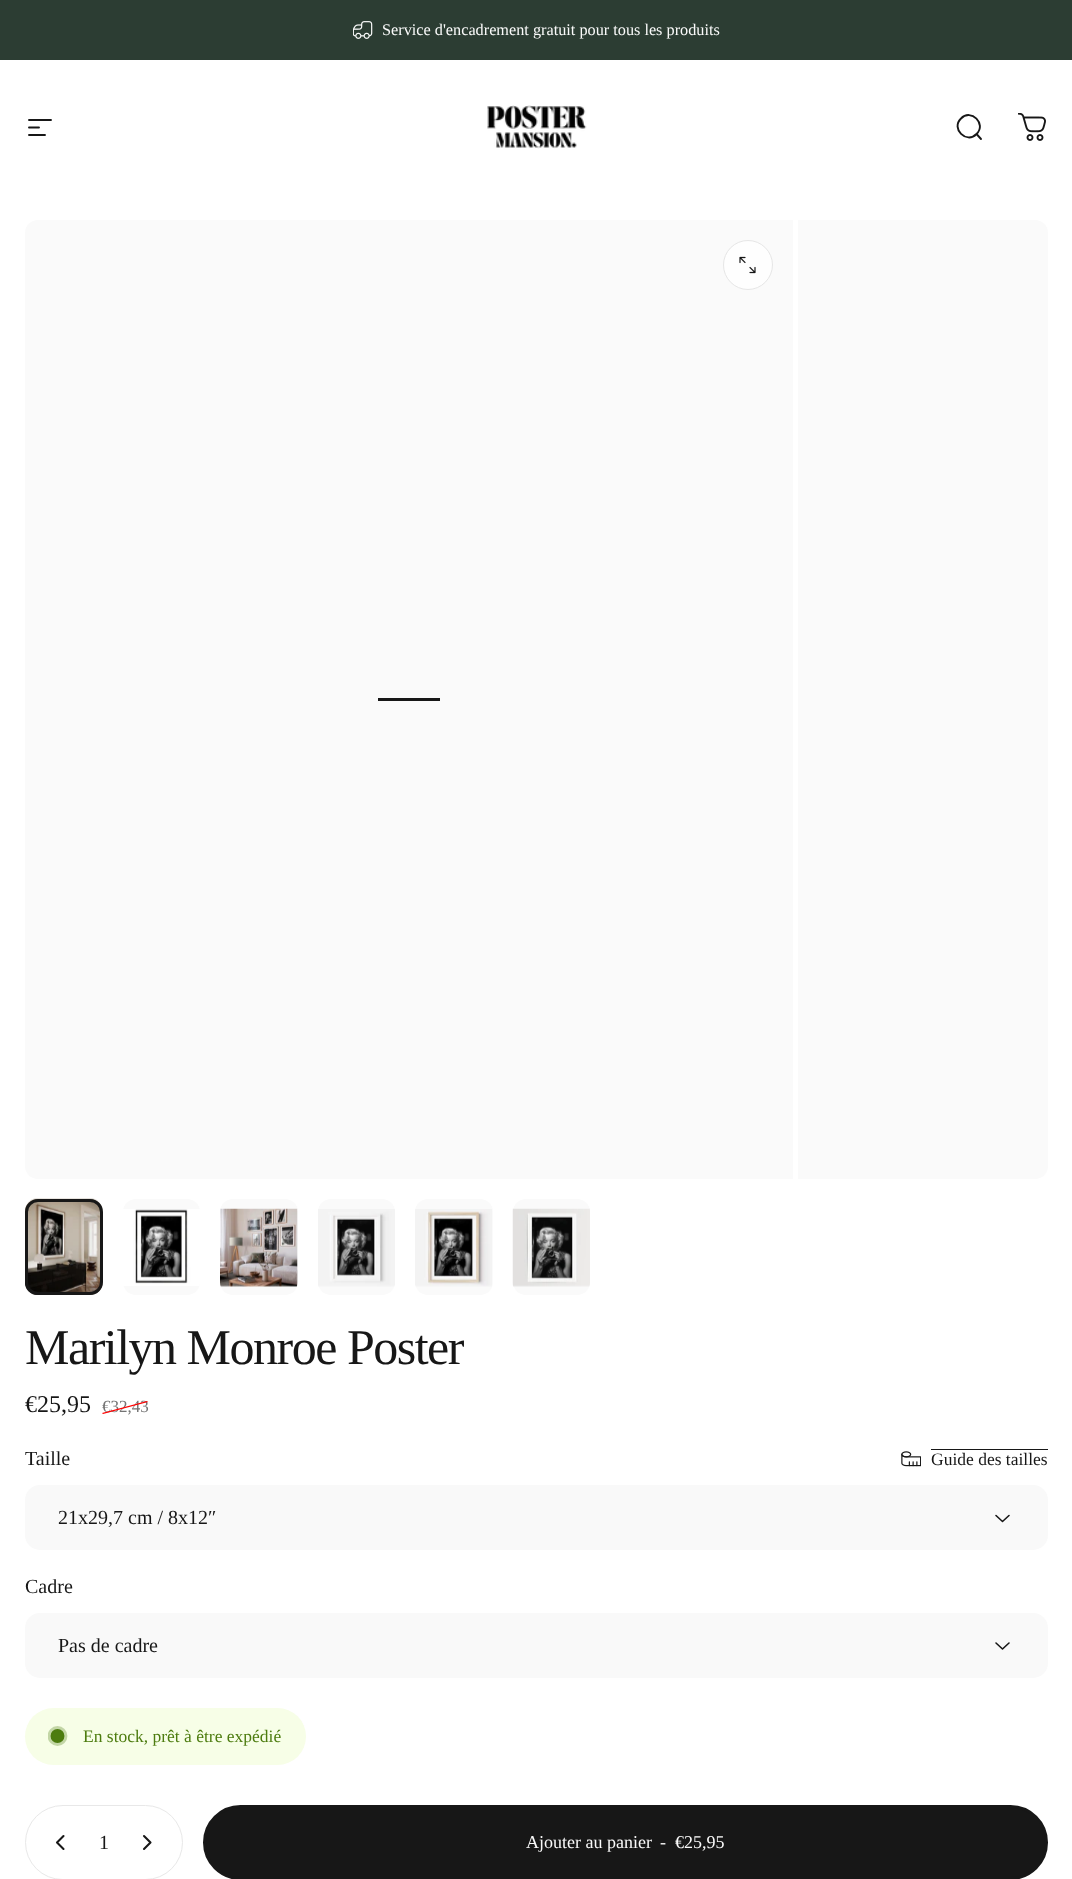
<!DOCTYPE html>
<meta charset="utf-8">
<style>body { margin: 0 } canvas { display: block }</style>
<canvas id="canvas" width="1072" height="1879"></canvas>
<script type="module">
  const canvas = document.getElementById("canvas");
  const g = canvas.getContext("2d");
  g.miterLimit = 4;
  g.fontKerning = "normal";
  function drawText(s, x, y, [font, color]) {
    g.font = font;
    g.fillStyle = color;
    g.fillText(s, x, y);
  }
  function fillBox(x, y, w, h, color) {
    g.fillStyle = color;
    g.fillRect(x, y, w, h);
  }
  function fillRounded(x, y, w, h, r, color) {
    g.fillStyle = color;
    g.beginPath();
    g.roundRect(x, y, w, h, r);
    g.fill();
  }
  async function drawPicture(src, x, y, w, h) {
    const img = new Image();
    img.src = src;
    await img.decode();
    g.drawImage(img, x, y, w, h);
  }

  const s1 = ["16.25px Liberation Serif", "#FAFAFA"];
  const s2 = ["50px Liberation Serif", "#171717"];
  const s3 = ["24px Liberation Serif", "#171717"];
  const s4 = ["17px Liberation Serif", "#747474"];
  const s5 = ["20px Liberation Serif", "#171717"];
  const s6 = ["17.5px Liberation Serif", "#171717"];
  const s7 = ["17.5px Liberation Serif", "#4D7C0F"];
  const s8 = ["18px Liberation Serif", "#FAFAFA"];

  fillBox(0, 0, 1072, 1879, "#FFFFFF");
  fillBox(0, 0, 1072, 60, "#2C3D33");
  await drawPicture("pic1.png", 353, 21, 20, 18);
  drawText("Service d'encadrement gratuit pour tous les produits", 382, 35, s1);
  g.beginPath();
  g.moveTo(29, 120);
  g.lineTo(51, 120);
  g.moveTo(29, 127.5);
  g.lineTo(39, 127.5);
  g.moveTo(29, 135);
  g.lineTo(45, 135);
  g.strokeStyle = "#171717";
  g.lineWidth = 1.9;
  g.lineCap = "round";
  g.stroke();
  await drawPicture("pic2.png", 487, 105, 100, 44);
  g.beginPath();
  g.moveTo(981, 139);
  g.lineTo(976.5, 134);
  g.moveTo(976.5, 134);
  g.bezierCurveTo(987, 124, 971, 108, 961, 118.5);
  g.bezierCurveTo(950.5, 128.5, 966.5, 144.5, 976.5, 134);
  g.closePath();
  g.stroke();
  await drawPicture("pic3.png", 1018, 113, 28, 28);
  g.beginPath();
  g.roundRect(25, 220, 768, 959, [13, 0, 0, 13]);
  g.fill();
  g.fillStyle = "#FEFEFE";
  g.beginPath();
  g.arc(748, 265, 24.5, 0, Math.PI * 2);
  g.fill();
  g.strokeStyle = "#E6E6E6";
  g.lineWidth = 1;
  g.stroke();
  await drawPicture("pic4.png", 739, 256, 17, 18);
  fillBox(378, 698, 62, 3, "#171717");
  g.fillStyle = "#FAFAFA";
  g.beginPath();
  g.roundRect(798, 220, 250, 959, [0, 13, 13, 0]);
  g.fill();
  await drawPicture("pic5.png", 25, 1198, 78, 97);
  g.beginPath();
  g.roundRect(26.5, 1200.5, 75, 93, 11.5);
  g.strokeStyle = "#171717";
  g.lineWidth = 3;
  g.stroke();
  fillRounded(123, 1199, 77, 96, 13, "#FAFAFA");
  await drawPicture("pic6.png", 123, 1209, 77, 77);
  fillRounded(220, 1199, 78, 96, 13, "#FAFAFA");
  await drawPicture("pic7.png", 220, 1208, 78, 79);
  fillRounded(318, 1199, 77, 96, 13, "#FAFAFA");
  await drawPicture("pic8.png", 318, 1209, 77, 78);
  fillRounded(415, 1199, 78, 96, 13, "#FAFAFA");
  await drawPicture("pic9.png", 415, 1209, 77, 78);
  fillRounded(513, 1199, 77, 96, 13, "#FAFAFA");
  await drawPicture("pic10.png", 512, 1208, 78, 79);
  g.letterSpacing = "-1.5px";
  drawText("Marilyn Monroe Poster", 25, 1364, s2);
  g.letterSpacing = "0px";
  drawText("€25,95", 25, 1412, s3);
  drawText("€32,43", 102, 1412, s4);
  g.fillStyle = "#FF0000";
  g.beginPath();
  g.moveTo(102, 1413);
  g.lineTo(147, 1401);
  g.lineTo(148, 1402);
  g.lineTo(103, 1414);
  g.closePath();
  g.fill();
  drawText("Taille", 25, 1465, s5);
  await drawPicture("pic11.png", 901, 1451, 20, 16);
  fillBox(931, 1449, 117, 1, "#171717");
  drawText("Guide des tailles", 931, 1465, s6);
  fillRounded(25, 1485, 1023, 65, 15, "#F9F9F9");
  drawText("21x29,7 cm / 8x12″", 58, 1524, s5);
  g.beginPath();
  g.moveTo(996, 1515.5);
  g.lineTo(1002.5, 1521.5);
  g.lineTo(1009, 1515.5);
  g.lineWidth = 1.6;
  g.lineJoin = "round";
  g.stroke();
  drawText("Cadre", 25, 1593, s5);
  fillRounded(25, 1613, 1023, 65, 15, "#F9F9F9");
  drawText("Pas de cadre", 58, 1652, s5);
  g.beginPath();
  g.moveTo(996, 1643);
  g.lineTo(1002.5, 1649);
  g.lineTo(1009, 1643);
  g.stroke();
  fillRounded(25, 1708, 281, 57, 28.5, "#F7FEE7");
  g.fillStyle = "#4D7C0F";
  g.beginPath();
  g.arc(57.5, 1736, 6, 0, Math.PI * 2);
  g.fill();
  g.strokeStyle = "#4D7C0F";
  g.lineWidth = 1.9;
  g.stroke();
  g.save();
  g.beginPath();
  g.rect(48, 1726, 20, 20);
  g.clip();
  g.beginPath();
  g.arc(57.5, 1736, 8, 0, Math.PI * 2);
  g.strokeStyle = "rgba(77, 124, 15, 0.3)";
  g.lineWidth = 3.8;
  g.stroke();
  g.restore();
  drawText("En stock, prêt à être expédié", 83, 1742, s7);
  g.beginPath();
  g.roundRect(25.5, 1805.5, 157, 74, 37);
  g.strokeStyle = "#E8E8E8";
  g.lineWidth = 1;
  g.lineJoin = "miter";
  g.stroke();
  g.beginPath();
  g.moveTo(63.5, 1836);
  g.lineTo(57, 1842.5);
  g.lineTo(63.5, 1849);
  g.strokeStyle = "#171717";
  g.lineWidth = 2.1;
  g.lineJoin = "round";
  g.stroke();
  drawText("1", 99, 1849, s5);
  g.beginPath();
  g.moveTo(144, 1836);
  g.lineTo(150.5, 1842.5);
  g.lineTo(144, 1849);
  g.stroke();
  g.beginPath();
  g.roundRect(204.5, 1806.5, 842, 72, 36);
  g.fill();
  g.lineWidth = 3;
  g.lineJoin = "miter";
  g.stroke();
  drawText("Ajouter au panier", 526, 1848, s8);
  drawText("-", 660, 1848, s8);
  drawText("€25,95", 675, 1848, s8);
</script>
